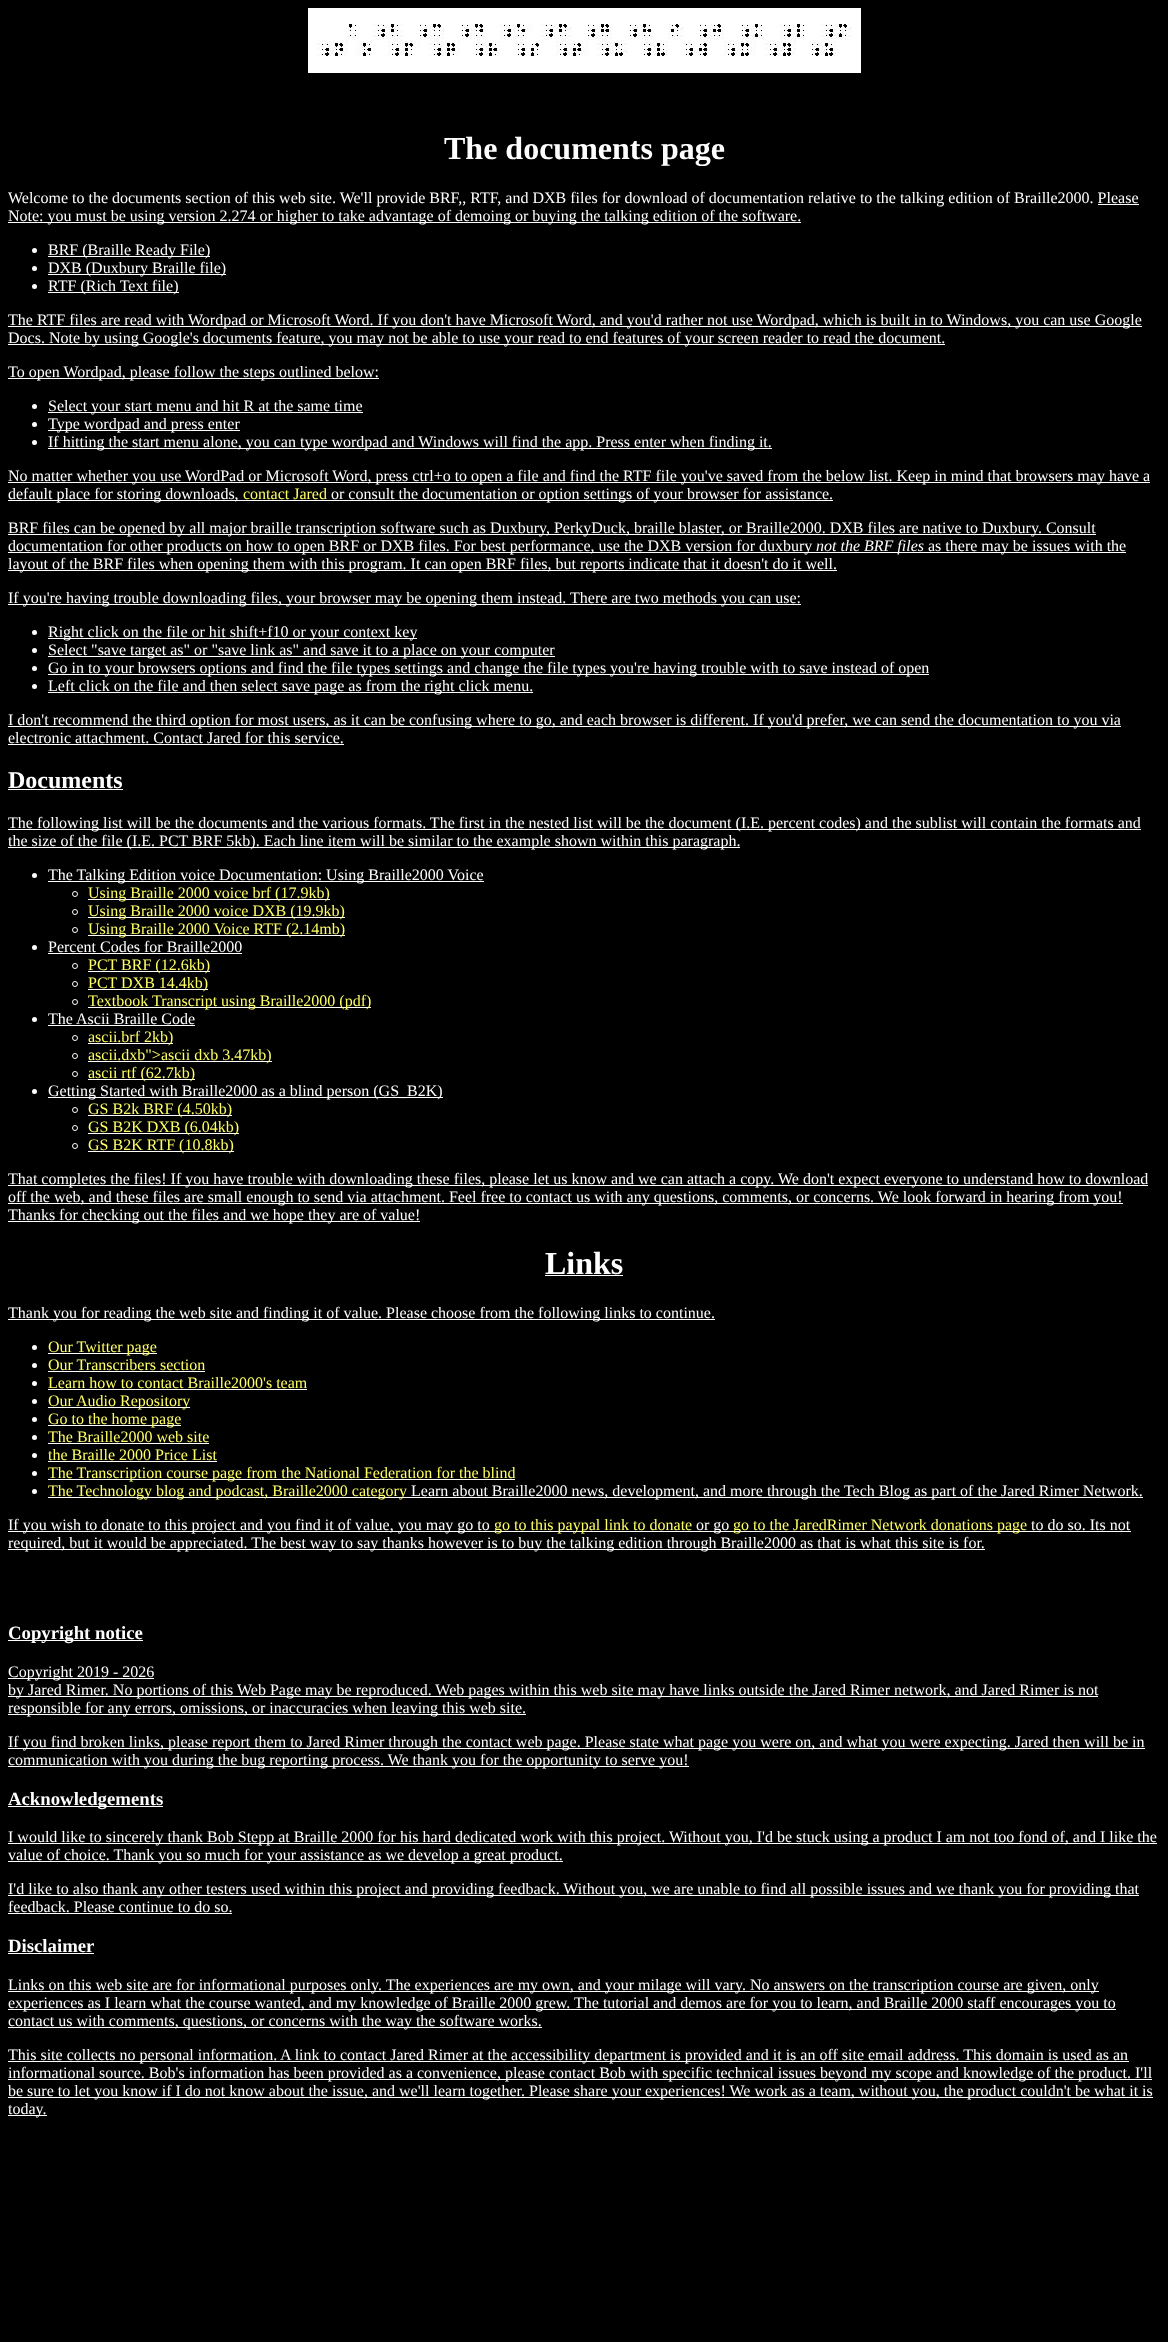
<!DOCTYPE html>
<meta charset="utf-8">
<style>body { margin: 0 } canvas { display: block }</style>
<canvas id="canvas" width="1168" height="2342"></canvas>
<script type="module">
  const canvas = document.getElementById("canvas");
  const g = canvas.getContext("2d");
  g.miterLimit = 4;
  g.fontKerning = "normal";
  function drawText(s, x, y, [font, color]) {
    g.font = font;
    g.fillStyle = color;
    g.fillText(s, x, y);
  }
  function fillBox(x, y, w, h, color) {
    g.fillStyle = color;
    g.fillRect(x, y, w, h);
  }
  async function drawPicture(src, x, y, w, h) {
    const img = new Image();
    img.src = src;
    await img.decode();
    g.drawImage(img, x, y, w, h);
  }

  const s1 = ["bold 32px Liberation Serif", "#FFFFFF"];
  const s2 = ["16px Liberation Serif", "#FFFFFF"];
  const s3 = ["16px Liberation Serif", "#FFFF66"];
  const s4 = ["italic 16px Liberation Serif", "#FFFFFF"];
  const s5 = ["bold 24px Liberation Serif", "#FFFFFF"];
  const s6 = ["bold 18.75px Liberation Serif", "#FFFFFF"];

  fillBox(0, 0, 1168, 2342, "#000000");
  await drawPicture("pic1.png", 308, 8, 553, 65);
  drawText("The documents page", 444, 159, s1);
  drawText("Welcome to the documents section of this web site. We'll provide BRF,, RTF, and DXB files for download of documentation relative to the talking edition of Braille2000. Please", 8, 203, s2);
  fillBox(8, 222, 793, 1, "#FFFFFF");
  drawText("Note: you must be using version 2.274 or higher to take advantage of demoing or buying the talking edition of the software.", 8, 221, s2);
  fillBox(1098, 204, 41, 1, "#FFFFFF");
  g.beginPath();
  g.arc(34.5, 250.5, 2.5, 0, Math.PI * 2);
  g.fill();
  fillBox(48, 256, 162, 1, "#FFFFFF");
  drawText("BRF (Braille Ready File)", 48, 255, s2);
  g.beginPath();
  g.arc(34.5, 268.5, 2.5, 0, Math.PI * 2);
  g.fill();
  fillBox(48, 274, 178, 1, "#FFFFFF");
  drawText("DXB (Duxbury Braille file)", 48, 273, s2);
  g.beginPath();
  g.arc(34.5, 286.5, 2.5, 0, Math.PI * 2);
  g.fill();
  fillBox(48, 292, 131, 1, "#FFFFFF");
  drawText("RTF (Rich Text file)", 48, 291, s2);
  fillBox(8, 326, 1134, 1, "#FFFFFF");
  drawText("The RTF files are read with Wordpad or Microsoft Word. If you don't have Microsoft Word, and you'd rather not use Wordpad, which is built in to Windows, you can use Google", 8, 325, s2);
  fillBox(8, 344, 937, 1, "#FFFFFF");
  drawText("Docs. Note by using Google's documents feature, you may not be able to use your read to end features of your screen reader to read the document.", 8, 343, s2);
  fillBox(8, 378, 371, 1, "#FFFFFF");
  drawText("To open Wordpad, please follow the steps outlined below:", 8, 377, s2);
  g.beginPath();
  g.arc(34.5, 406.5, 2.5, 0, Math.PI * 2);
  g.fill();
  fillBox(48, 412, 315, 1, "#FFFFFF");
  drawText("Select your start menu and hit R at the same time", 48, 411, s2);
  g.beginPath();
  g.arc(34.5, 424.5, 2.5, 0, Math.PI * 2);
  g.fill();
  fillBox(48, 430, 192, 1, "#FFFFFF");
  drawText("Type wordpad and press enter", 48, 429, s2);
  g.beginPath();
  g.arc(34.5, 442.5, 2.5, 0, Math.PI * 2);
  g.fill();
  fillBox(48, 448, 724, 1, "#FFFFFF");
  drawText("If hitting the start menu alone, you can type wordpad and Windows will find the app. Press enter when finding it.", 48, 447, s2);
  fillBox(8, 482, 1142, 1, "#FFFFFF");
  drawText("No matter whether you use WordPad or Microsoft Word, press ctrl+o to open a file and find the RTF file you've saved from the below list. Keep in mind that browsers may have a", 8, 481, s2);
  fillBox(8, 500, 825, 1, "#FFFFFF");
  drawText("default place for storing downloads,", 8, 499, s2);
  drawText("contact Jared", 243, 499, s3);
  drawText("or consult the documentation or option settings of your browser for assistance.", 331, 499, s2);
  fillBox(8, 534, 1088, 1, "#FFFFFF");
  drawText("BRF files can be opened by all major braille transcription software such as Duxbury, PerkyDuck, braille blaster, or Braille2000. DXB files are native to Duxbury. Consult", 8, 533, s2);
  fillBox(8, 552, 1118, 1, "#FFFFFF");
  drawText("documentation for other products on how to open BRF or DXB files. For best performance, use the DXB version for duxbury", 8, 551, s2);
  drawText("not the BRF files", 816, 551, s4);
  drawText("as there may be issues with the", 928, 551, s2);
  fillBox(8, 570, 829, 1, "#FFFFFF");
  drawText("layout of the BRF files when opening them with this program. It can open BRF files, but reports indicate that it doesn't do it well.", 8, 569, s2);
  fillBox(8, 604, 793, 1, "#FFFFFF");
  drawText("If you're having trouble downloading files, your browser may be opening them instead. There are two methods you can use:", 8, 603, s2);
  g.beginPath();
  g.arc(34.5, 632.5, 2.5, 0, Math.PI * 2);
  g.fill();
  fillBox(48, 638, 369, 1, "#FFFFFF");
  drawText("Right click on the file or hit shift+f10 or your context key", 48, 637, s2);
  g.beginPath();
  g.arc(34.5, 650.5, 2.5, 0, Math.PI * 2);
  g.fill();
  fillBox(48, 656, 507, 1, "#FFFFFF");
  drawText("Select \"save target as\" or \"save link as\" and save it to a place on your computer", 48, 655, s2);
  g.beginPath();
  g.arc(34.5, 668.5, 2.5, 0, Math.PI * 2);
  g.fill();
  fillBox(48, 674, 881, 1, "#FFFFFF");
  drawText("Go in to your browsers options and find the file types settings and change the file types you're having trouble with to save instead of open", 48, 673, s2);
  g.beginPath();
  g.arc(34.5, 686.5, 2.5, 0, Math.PI * 2);
  g.fill();
  fillBox(48, 692, 485, 1, "#FFFFFF");
  drawText("Left click on the file and then select save page as from the right click menu.", 48, 691, s2);
  fillBox(8, 726, 1113, 1, "#FFFFFF");
  drawText("I don't recommend the third option for most users, as it can be confusing where to go, and each browser is different. If you'd prefer, we can send the documentation to you via", 8, 725, s2);
  drawText("electronic attachment. Contact Jared for this service.", 8, 743, s2);
  fillBox(8, 744, 336, 1, "#FFFFFF");
  drawText("Documents", 8, 788, s5);
  fillBox(8, 789, 115, 1, "#FFFFFF");
  fillBox(8, 829, 1133, 1, "#FFFFFF");
  drawText("The following list will be the documents and the various formats. The first in the nested list will be the document (I.E. percent codes) and the sublist will contain the formats and", 8, 828, s2);
  fillBox(8, 847, 732, 1, "#FFFFFF");
  drawText("the size of the file (I.E. PCT BRF 5kb). Each line item will be similar to the example shown within this paragraph.", 8, 846, s2);
  g.beginPath();
  g.arc(34.5, 875.5, 2.5, 0, Math.PI * 2);
  g.fill();
  fillBox(48, 881, 436, 1, "#FFFFFF");
  drawText("The Talking Edition voice Documentation: Using Braille2000 Voice", 48, 880, s2);
  g.beginPath();
  g.arc(75, 894, 2.5, 0, Math.PI * 2);
  g.strokeStyle = "#FFFFFF";
  g.stroke();
  fillBox(88, 899, 242, 1, "#FFFFFF");
  drawText("Using Braille 2000 voice brf (17.9kb)", 88, 898, s3);
  g.beginPath();
  g.arc(75, 912, 2.5, 0, Math.PI * 2);
  g.stroke();
  fillBox(88, 917, 257, 1, "#FFFFFF");
  drawText("Using Braille 2000 voice DXB (19.9kb)", 88, 916, s3);
  g.beginPath();
  g.arc(75, 930, 2.5, 0, Math.PI * 2);
  g.stroke();
  fillBox(88, 935, 257, 1, "#FFFFFF");
  drawText("Using Braille 2000 Voice RTF (2.14mb)", 88, 934, s3);
  g.fillStyle = "#FFFFFF";
  g.beginPath();
  g.arc(34.5, 947.5, 2.5, 0, Math.PI * 2);
  g.fill();
  drawText("Percent Codes for Braille2000", 48, 952, s2);
  fillBox(48, 953, 194, 1, "#FFFFFF");
  g.beginPath();
  g.arc(75, 966, 2.5, 0, Math.PI * 2);
  g.stroke();
  fillBox(88, 971, 122, 1, "#FFFFFF");
  drawText("PCT BRF (12.6kb)", 88, 970, s3);
  g.beginPath();
  g.arc(75, 984, 2.5, 0, Math.PI * 2);
  g.stroke();
  fillBox(88, 989, 120, 1, "#FFFFFF");
  drawText("PCT DXB 14.4kb)", 88, 988, s3);
  g.beginPath();
  g.arc(75, 1002, 2.5, 0, Math.PI * 2);
  g.stroke();
  fillBox(88, 1007, 283, 1, "#FFFFFF");
  drawText("Textbook Transcript using Braille2000 (pdf)", 88, 1006, s3);
  g.fillStyle = "#FFFFFF";
  g.beginPath();
  g.arc(34.5, 1019.5, 2.5, 0, Math.PI * 2);
  g.fill();
  drawText("The Ascii Braille Code", 48, 1024, s2);
  fillBox(48, 1025, 147, 1, "#FFFFFF");
  g.beginPath();
  g.arc(75, 1038, 2.5, 0, Math.PI * 2);
  g.stroke();
  fillBox(88, 1043, 85, 1, "#FFFFFF");
  drawText("ascii.brf 2kb)", 88, 1042, s3);
  g.beginPath();
  g.arc(75, 1056, 2.5, 0, Math.PI * 2);
  g.stroke();
  fillBox(88, 1061, 184, 1, "#FFFFFF");
  drawText("ascii.dxb\">ascii dxb 3.47kb)", 88, 1060, s3);
  g.beginPath();
  g.arc(75, 1074, 2.5, 0, Math.PI * 2);
  g.stroke();
  fillBox(88, 1079, 107, 1, "#FFFFFF");
  drawText("ascii rtf (62.7kb)", 88, 1078, s3);
  g.fillStyle = "#FFFFFF";
  g.beginPath();
  g.arc(34.5, 1091.5, 2.5, 0, Math.PI * 2);
  g.fill();
  fillBox(48, 1097, 395, 1, "#FFFFFF");
  drawText("Getting Started with Braille2000 as a blind person (GS_B2K)", 48, 1096, s2);
  g.beginPath();
  g.arc(75, 1110, 2.5, 0, Math.PI * 2);
  g.stroke();
  fillBox(88, 1115, 144, 1, "#FFFFFF");
  drawText("GS B2k BRF (4.50kb)", 88, 1114, s3);
  g.beginPath();
  g.arc(75, 1128, 2.5, 0, Math.PI * 2);
  g.stroke();
  fillBox(88, 1133, 151, 1, "#FFFFFF");
  drawText("GS B2K DXB (6.04kb)", 88, 1132, s3);
  g.beginPath();
  g.arc(75, 1146, 2.5, 0, Math.PI * 2);
  g.stroke();
  fillBox(88, 1151, 146, 1, "#FFFFFF");
  drawText("GS B2K RTF (10.8kb)", 88, 1150, s3);
  fillBox(8, 1185, 1140, 1, "#FFFFFF");
  drawText("That completes the files! If you have trouble with downloading these files, please let us know and we can attach a copy. We don't expect everyone to understand how to download", 8, 1184, s2);
  fillBox(8, 1203, 1115, 1, "#FFFFFF");
  drawText("off the web, and these files are small enough to send via attachment. Feel free to contact us with any questions, comments, or concerns. We look forward in hearing from you!", 8, 1202, s2);
  fillBox(8, 1221, 412, 1, "#FFFFFF");
  drawText("Thanks for checking out the files and we hope they are of value!", 8, 1220, s2);
  drawText("Links", 545, 1274, s1);
  fillBox(545, 1275, 78, 1, "#FFFFFF");
  fillBox(8, 1319, 707, 1, "#FFFFFF");
  drawText("Thank you for reading the web site and finding it of value. Please choose from the following links to continue.", 8, 1318, s2);
  g.beginPath();
  g.arc(34.5, 1347.5, 2.5, 0, Math.PI * 2);
  g.fill();
  fillBox(48, 1353, 109, 1, "#FFFFFF");
  drawText("Our Twitter page", 48, 1352, s3);
  g.fillStyle = "#FFFFFF";
  g.beginPath();
  g.arc(34.5, 1365.5, 2.5, 0, Math.PI * 2);
  g.fill();
  drawText("Our Transcribers section", 48, 1370, s3);
  fillBox(48, 1371, 157, 1, "#FFFFFF");
  g.beginPath();
  g.arc(34.5, 1383.5, 2.5, 0, Math.PI * 2);
  g.fill();
  drawText("Learn how to contact Braille2000's team", 48, 1388, s3);
  fillBox(48, 1389, 259, 1, "#FFFFFF");
  g.beginPath();
  g.arc(34.5, 1401.5, 2.5, 0, Math.PI * 2);
  g.fill();
  fillBox(48, 1407, 142, 1, "#FFFFFF");
  drawText("Our Audio Repository", 48, 1406, s3);
  g.fillStyle = "#FFFFFF";
  g.beginPath();
  g.arc(34.5, 1419.5, 2.5, 0, Math.PI * 2);
  g.fill();
  fillBox(48, 1425, 133, 1, "#FFFFFF");
  drawText("Go to the home page", 48, 1424, s3);
  g.fillStyle = "#FFFFFF";
  g.beginPath();
  g.arc(34.5, 1437.5, 2.5, 0, Math.PI * 2);
  g.fill();
  drawText("The Braille2000 web site", 48, 1442, s3);
  fillBox(48, 1443, 161, 1, "#FFFFFF");
  g.beginPath();
  g.arc(34.5, 1455.5, 2.5, 0, Math.PI * 2);
  g.fill();
  drawText("the Braille 2000 Price List", 48, 1460, s3);
  fillBox(48, 1461, 169, 1, "#FFFFFF");
  g.beginPath();
  g.arc(34.5, 1473.5, 2.5, 0, Math.PI * 2);
  g.fill();
  fillBox(48, 1479, 467, 1, "#FFFFFF");
  drawText("The Transcription course page from the National Federation for the blind", 48, 1478, s3);
  g.fillStyle = "#FFFFFF";
  g.beginPath();
  g.arc(34.5, 1491.5, 2.5, 0, Math.PI * 2);
  g.fill();
  fillBox(48, 1497, 1095, 1, "#FFFFFF");
  drawText("The Technology blog and podcast, Braille2000 category", 48, 1496, s3);
  drawText("Learn about Braille2000 news, development, and more through the Tech Blog as part of the Jared Rimer Network.", 411, 1496, s2);
  fillBox(8, 1531, 1123, 1, "#FFFFFF");
  drawText("If you wish to donate to this project and you find it of value, you may go to", 8, 1530, s2);
  drawText("go to this paypal link to donate", 494, 1530, s3);
  drawText("or go", 696, 1530, s2);
  drawText("go to the JaredRimer Network donations page", 733, 1530, s3);
  drawText("to do so. Its not", 1031, 1530, s2);
  fillBox(8, 1549, 977, 1, "#FFFFFF");
  drawText("required, but it would be appreciated. The best way to say thanks however is to buy the talking edition through Braille2000 as that is what this site is for.", 8, 1548, s2);
  fillBox(8, 1640, 135, 1, "#FFFFFF");
  drawText("Copyright notice", 8, 1639, s6);
  fillBox(8, 1678, 146, 1, "#FFFFFF");
  drawText("Copyright 2019 - 2026", 8, 1677, s2);
  fillBox(8, 1696, 1090, 1, "#FFFFFF");
  drawText("by Jared Rimer. No portions of this Web Page may be reproduced. Web pages within this web site may have links outside the Jared Rimer network, and Jared Rimer is not", 8, 1695, s2);
  fillBox(8, 1714, 518, 1, "#FFFFFF");
  drawText("responsible for any errors, omissions, or inaccuracies when leaving this web site.", 8, 1713, s2);
  fillBox(8, 1748, 1137, 1, "#FFFFFF");
  drawText("If you find broken links, please report them to Jared Rimer through the contact web page. Please state what page you were on, and what you were expecting. Jared then will be in", 8, 1747, s2);
  fillBox(8, 1766, 681, 1, "#FFFFFF");
  drawText("communication with you during the bug reporting process. We thank you for the opportunity to serve you!", 8, 1765, s2);
  fillBox(8, 1806, 155, 1, "#FFFFFF");
  drawText("Acknowledgements", 8, 1805, s6);
  fillBox(8, 1843, 1149, 1, "#FFFFFF");
  drawText("I would like to sincerely thank Bob Stepp at Braille 2000 for his hard dedicated work with this project. Without you, I'd be stuck using a product I am not too fond of, and I like the", 8, 1842, s2);
  fillBox(8, 1861, 555, 1, "#FFFFFF");
  drawText("value of choice. Thank you so much for your assistance as we develop a great product.", 8, 1860, s2);
  fillBox(8, 1895, 1131, 1, "#FFFFFF");
  drawText("I'd like to also thank any other testers used within this project and providing feedback. Without you, we are unable to find all possible issues and we thank you for providing that", 8, 1894, s2);
  drawText("feedback. Please continue to do so.", 8, 1912, s2);
  fillBox(8, 1913, 224, 1, "#FFFFFF");
  drawText("Disclaimer", 8, 1952, s6);
  fillBox(8, 1953, 86, 1, "#FFFFFF");
  fillBox(8, 1991, 1091, 1, "#FFFFFF");
  drawText("Links on this web site are for informational purposes only. The experiences are my own, and your milage will vary. No answers on the transcription course are given, only", 8, 1990, s2);
  fillBox(8, 2009, 1108, 1, "#FFFFFF");
  drawText("experiences as I learn what the course wanted, and my knowledge of Braille 2000 grew. The tutorial and demos are for you to learn, and Braille 2000 staff encourages you to", 8, 2008, s2);
  fillBox(8, 2027, 534, 1, "#FFFFFF");
  drawText("contact us with comments, questions, or concerns with the way the software works.", 8, 2026, s2);
  fillBox(8, 2061, 1121, 1, "#FFFFFF");
  drawText("This site collects no personal information.", 8, 2060, s2);
  drawText("A link to contact Jared Rimer at the accessibility department is provided and it is an off site email address. This domain is used as an", 280, 2060, s2);
  fillBox(8, 2079, 1144, 1, "#FFFFFF");
  drawText("informational source. Bob's information has been provided as a convenience, please contact Bob with specific technical issues beyond my scope and knowledge of the product. I'll", 8, 2078, s2);
  fillBox(8, 2097, 1145, 1, "#FFFFFF");
  drawText("be sure to let you know if I do not know about the issue, and we'll learn together. Please share your experiences! We work as a team, without you, the product couldn't be what it is", 8, 2096, s2);
  fillBox(8, 2115, 39, 1, "#FFFFFF");
  drawText("today.", 8, 2114, s2);
</script>
